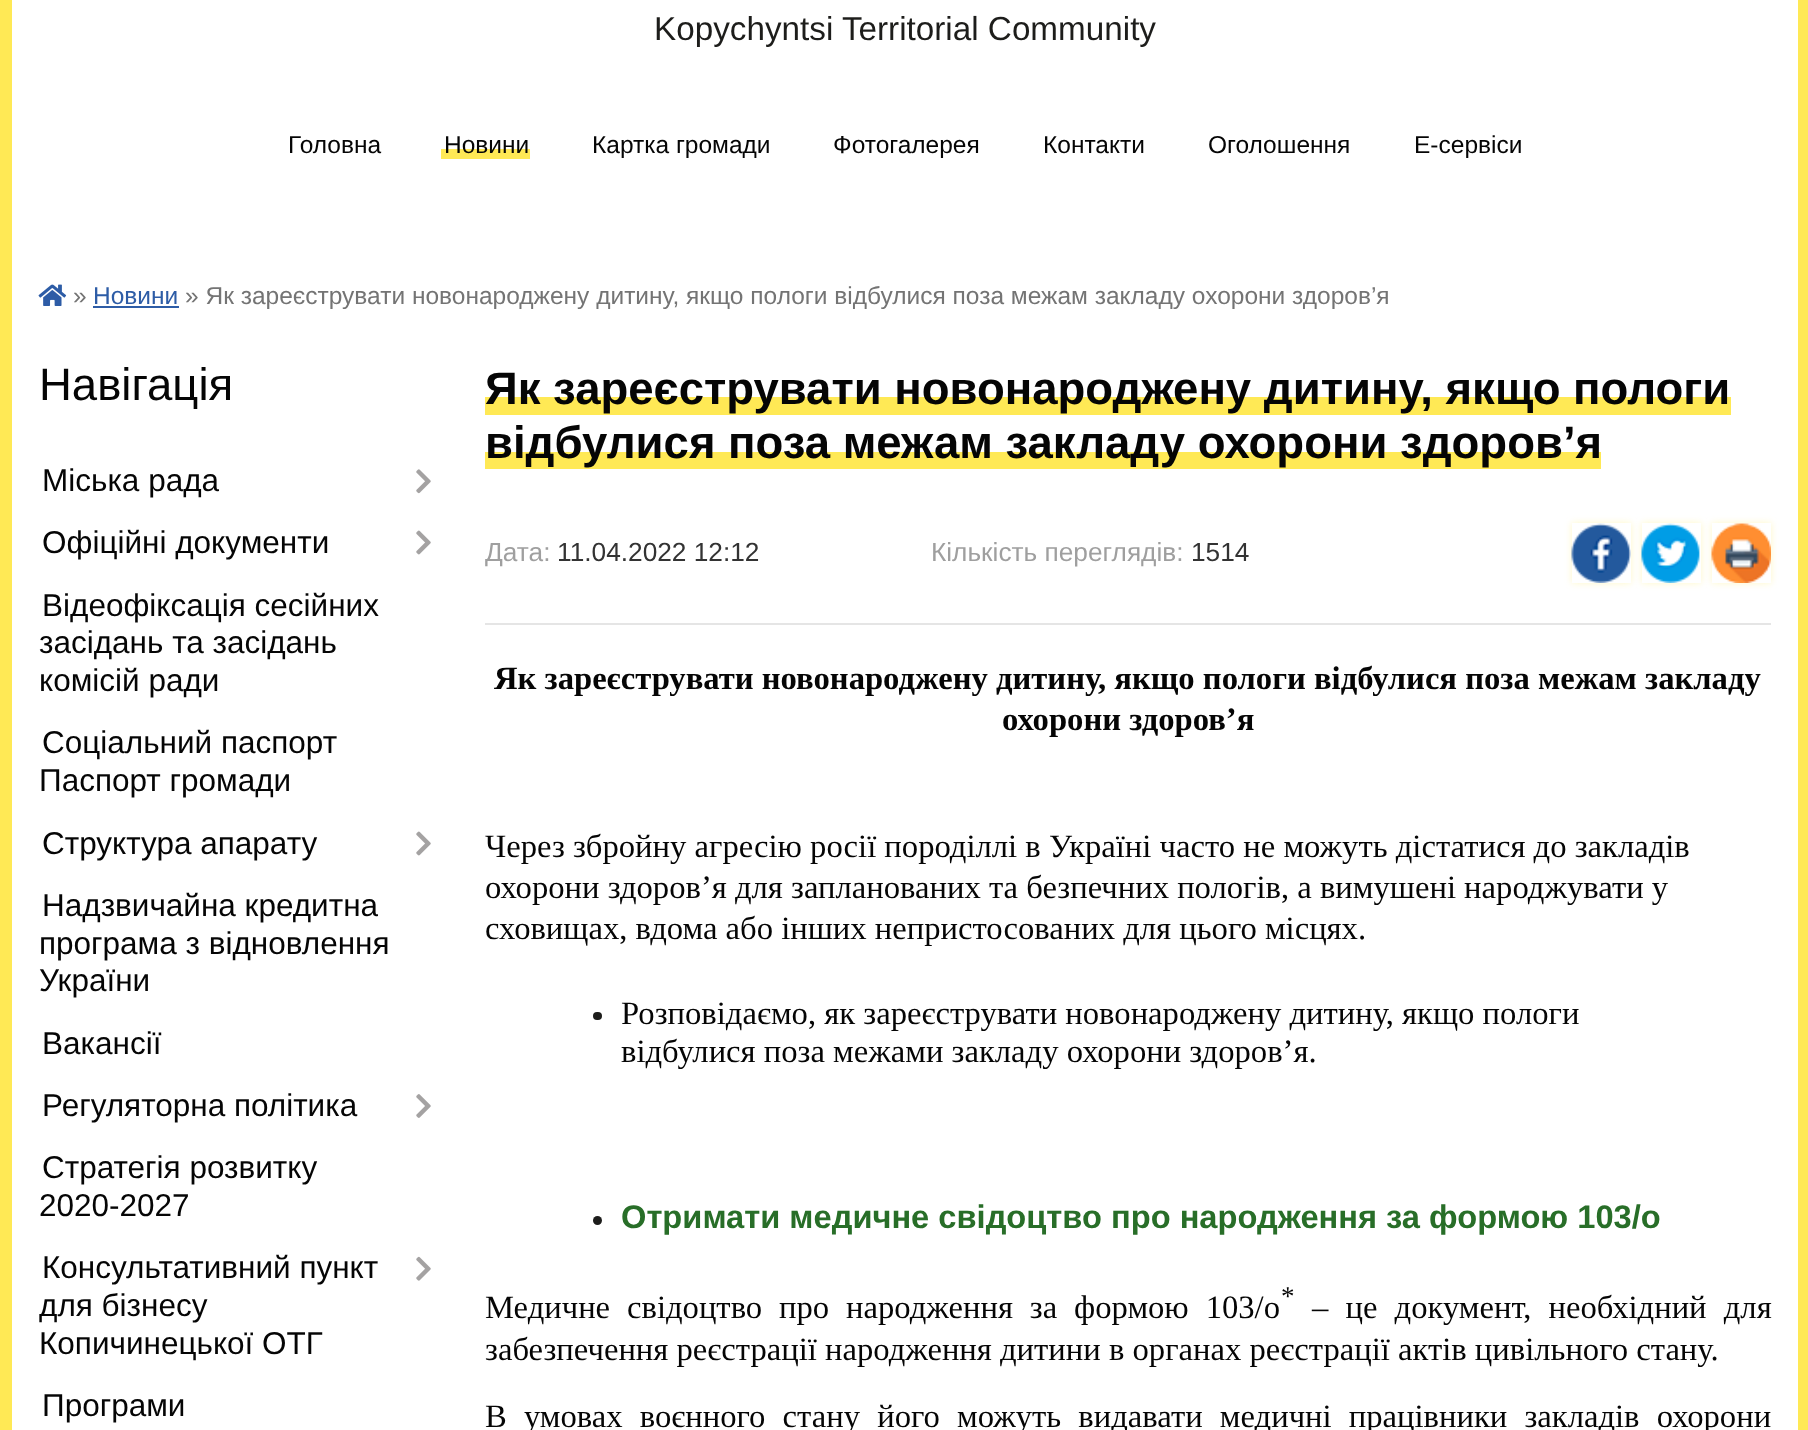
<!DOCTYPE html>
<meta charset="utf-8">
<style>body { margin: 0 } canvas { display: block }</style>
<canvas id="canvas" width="1808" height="1430"></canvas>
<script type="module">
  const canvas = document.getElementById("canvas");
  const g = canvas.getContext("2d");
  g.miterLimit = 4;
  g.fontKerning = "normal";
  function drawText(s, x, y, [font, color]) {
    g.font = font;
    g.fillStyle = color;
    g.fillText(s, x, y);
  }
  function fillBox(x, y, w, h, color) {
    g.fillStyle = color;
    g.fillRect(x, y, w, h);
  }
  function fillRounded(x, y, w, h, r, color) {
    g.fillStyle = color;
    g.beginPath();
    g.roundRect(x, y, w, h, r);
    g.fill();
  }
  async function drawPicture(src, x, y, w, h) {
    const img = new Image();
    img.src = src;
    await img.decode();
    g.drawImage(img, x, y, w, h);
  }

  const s1 = ["33.25px Liberation Sans", "#1D1D1B"];
  const s2 = ["24.5px Liberation Sans", "#050505"];
  const s3 = ["24.5px Liberation Sans", "#747474"];
  const s4 = ["24.5px Liberation Sans", "#2D5CA6"];
  const s5 = ["45.5px Liberation Sans", "#050505"];
  const s6 = ["31.5px Liberation Sans", "#050505"];
  const s7 = ["bold 45.5px Liberation Sans", "#050505"];
  const s8 = ["26.25px Liberation Sans", "#9F9F9F"];
  const s9 = ["26.25px Liberation Sans", "#333333"];
  const s10 = ["bold 32.65px Liberation Serif", "#050505"];
  const s11 = ["32.65px Liberation Serif", "#050505"];
  const s12 = ["bold 32.65px Liberation Sans", "#286E28"];
  const s13 = ["27px Liberation Serif", "#050505"];

  fillBox(0, 0, 1808, 1430, "#FFFFFF");
  g.strokeStyle = "#FFE955";
  g.lineWidth = 12;
  g.strokeRect(6, -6, 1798, 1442);
  drawText("Kopychyntsi Territorial Community", 654, 40, s1);
  drawText("Головна", 288, 153, s2);
  fillBox(441, 149, 89, 10, "#FFE955");
  drawText("Новини", 444, 153, s2);
  drawText("Картка громади", 592, 153, s2);
  drawText("Фотогалерея", 833, 153, s2);
  drawText("Контакти", 1043, 153, s2);
  drawText("Оголошення", 1208, 153, s2);
  drawText("E-сервіси", 1414, 153, s2);
  await drawPicture("pic1.png", 38, 284, 29, 22);
  drawText("»", 73, 304, s3);
  drawText("Новини", 93, 304, s4);
  fillBox(93, 306, 86, 2, "#2D5CA6");
  drawText("» Як зареєструвати новонароджену дитину, якщо пологи відбулися поза межам закладу охорони здоров’я", 185, 304, s3);
  drawText("Навігація", 39, 400, s5);
  drawText("Міська рада", 42, 491, s6);
  await drawPicture("pic2.png", 416, 469, 15, 25);
  drawText("Офіційні документи", 42, 553, s6);
  await drawPicture("pic3.png", 416, 530, 15, 25);
  drawText("Відеофіксація сесійних", 42, 616, s6);
  drawText("засідань та засідань", 39, 653, s6);
  drawText("комісій ради", 39, 691, s6);
  drawText("Соціальний паспорт", 42, 753, s6);
  drawText("Паспорт громади", 39, 791, s6);
  drawText("Структура апарату", 42, 854, s6);
  await drawPicture("pic3.png", 416, 831, 15, 25);
  drawText("Надзвичайна кредитна", 42, 916, s6);
  drawText("програма з відновлення", 39, 954, s6);
  drawText("України", 39, 991, s6);
  drawText("Вакансії", 42, 1054, s6);
  drawText("Регуляторна політика", 42, 1116, s6);
  await drawPicture("pic4.png", 416, 1094, 15, 24);
  drawText("Стратегія розвитку", 42, 1178, s6);
  drawText("2020-2027", 39, 1216, s6);
  drawText("Консультативний пункт", 42, 1278, s6);
  drawText("для бізнесу", 39, 1316, s6);
  drawText("Копичинецької ОТГ", 39, 1354, s6);
  await drawPicture("pic5.png", 416, 1256, 15, 25);
  drawText("Програми", 42, 1416, s6);
  fillBox(485, 397, 1246, 18, "#FFE955");
  drawText("Як зареєструвати новонароджену дитину, якщо пологи", 485, 404, s7);
  fillBox(485, 452, 1116, 17, "#FFE955");
  drawText("відбулися поза межам закладу охорони здоров’я", 485, 458, s7);
  drawText("Дата:", 485, 561, s8);
  drawText("11.04.2022 12:12", 557, 561, s9);
  drawText("Кількість переглядів:", 931, 561, s8);
  drawText("1514", 1191, 561, s9);
  g.save();
  g.beginPath();
  g.moveTo(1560, 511);
  g.lineTo(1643, 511);
  g.lineTo(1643, 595);
  g.lineTo(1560, 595);
  g.closePath();
  g.moveTo(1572, 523);
  g.lineTo(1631, 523);
  g.lineTo(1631, 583);
  g.lineTo(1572, 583);
  g.closePath();
  g.clip("evenodd");
  g.fillStyle = "rgba(255, 233, 85, 0.33)";
  g.filter = "blur(3.5px)";
  g.beginPath();
  g.rect(1572, 523, 59, 60);
  g.fill();
  g.filter = "none";
  g.restore();
  await drawPicture("pic6.png", 1571, 523, 60, 60);
  g.save();
  g.beginPath();
  g.moveTo(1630, 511);
  g.lineTo(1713, 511);
  g.lineTo(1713, 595);
  g.lineTo(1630, 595);
  g.closePath();
  g.moveTo(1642, 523);
  g.lineTo(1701, 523);
  g.lineTo(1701, 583);
  g.lineTo(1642, 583);
  g.closePath();
  g.clip("evenodd");
  g.fillStyle = "rgba(255, 233, 85, 0.33)";
  g.filter = "blur(3.5px)";
  g.beginPath();
  g.rect(1642, 523, 59, 60);
  g.fill();
  g.filter = "none";
  g.restore();
  await drawPicture("pic7.png", 1641, 523, 59, 60);
  g.save();
  g.beginPath();
  g.moveTo(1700, 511);
  g.lineTo(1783, 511);
  g.lineTo(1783, 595);
  g.lineTo(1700, 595);
  g.closePath();
  g.moveTo(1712, 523);
  g.lineTo(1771, 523);
  g.lineTo(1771, 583);
  g.lineTo(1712, 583);
  g.closePath();
  g.clip("evenodd");
  g.fillStyle = "rgba(255, 233, 85, 0.33)";
  g.filter = "blur(3.5px)";
  g.beginPath();
  g.rect(1712, 523, 59, 60);
  g.fill();
  g.filter = "none";
  g.restore();
  await drawPicture("pic8.png", 1711, 523, 60, 60);
  fillBox(485, 623, 1286, 2, "#E5E5E5");
  drawText("Як зареєструвати новонароджену дитину, якщо пологи відбулися поза межам закладу", 494, 689, s10);
  drawText("охорони здоров’я", 1002, 730, s10);
  drawText("Через збройну агресію росії породіллі в Україні часто не можуть дістатися до закладів", 485, 857, s11);
  drawText("охорони здоров’я для запланованих та безпечних пологів, а вимушені народжувати у", 485, 898, s11);
  drawText("сховищах, вдома або інших непристосованих для цього місцях.", 485, 939, s11);
  fillRounded(593, 1012, 9, 8, 4, "#1D1D1B");
  drawText("Розповідаємо, як зареєструвати новонароджену дитину, якщо пологи", 621, 1024, s11);
  drawText("відбулися поза межами закладу охорони здоров’я.", 621, 1062, s11);
  g.fillStyle = "#1D1D1B";
  g.beginPath();
  g.arc(597.5, 1220.5, 4.5, 0, Math.PI * 2);
  g.fill();
  drawText("Отримати медичне свідоцтво про народження за формою 103/о", 621, 1228, s12);
  drawText("*", 1281, 1305, s13);
  g.wordSpacing = "8.75px";
  drawText("Медичне свідоцтво про народження за формою 103/о", 485, 1318, s11);
  g.wordSpacing = "9px";
  drawText("– це документ, необхідний для", 1312, 1318, s11);
  g.wordSpacing = "0px";
  drawText("забезпечення реєстрації народження дитини в органах реєстрації актів цивільного стану.", 485, 1360, s11);
  g.wordSpacing = "9px";
  drawText("В умовах воєнного стану його можуть видавати медичні працівники закладів охорони", 485, 1427, s11);
</script>
